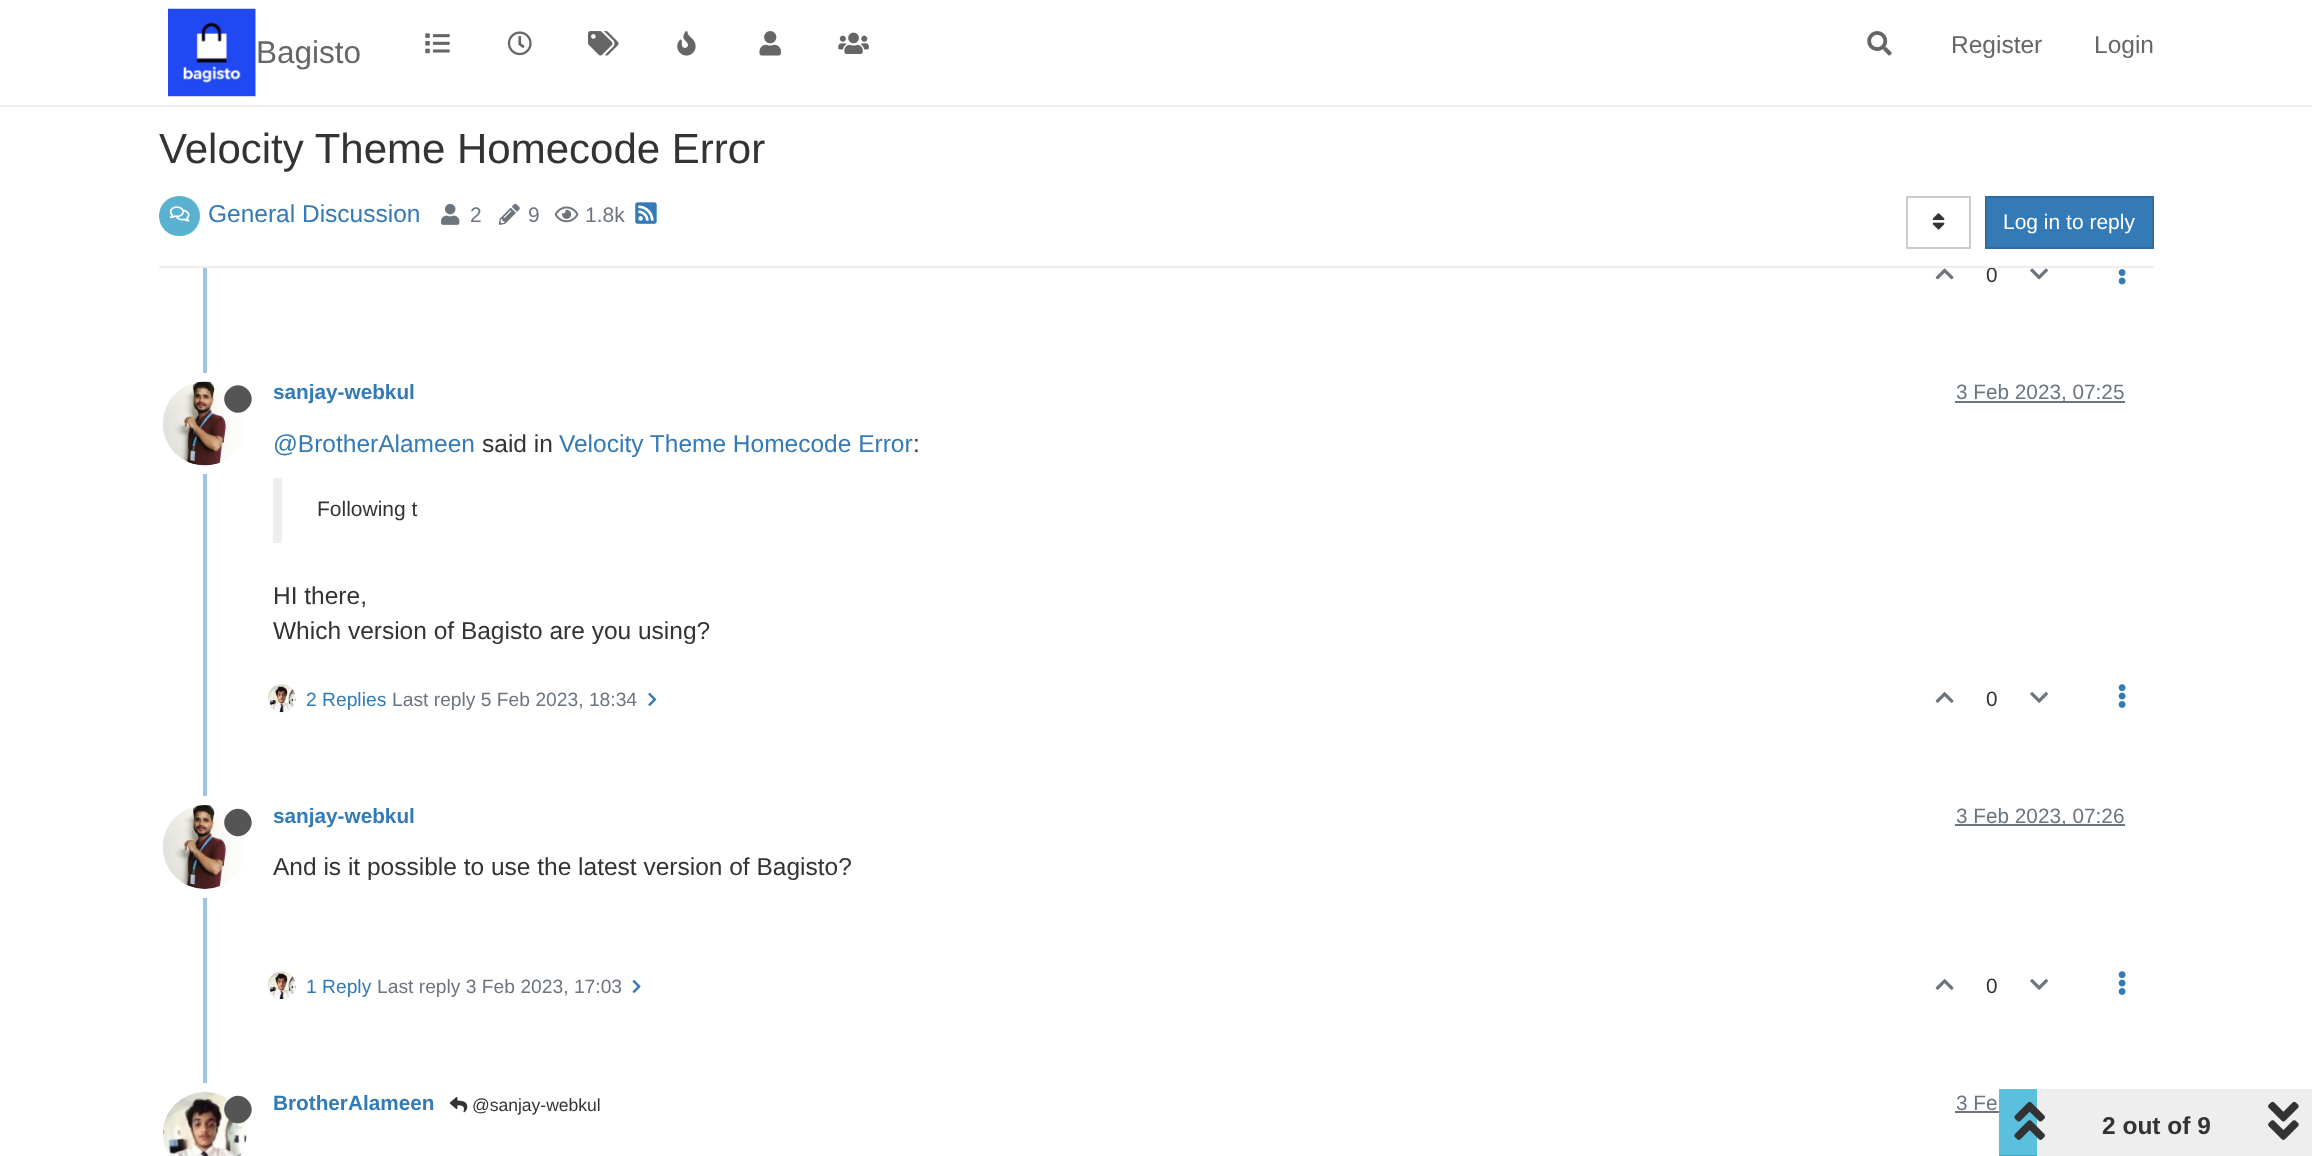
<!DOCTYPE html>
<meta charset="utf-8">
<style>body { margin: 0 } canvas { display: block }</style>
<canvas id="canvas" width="2312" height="1156"></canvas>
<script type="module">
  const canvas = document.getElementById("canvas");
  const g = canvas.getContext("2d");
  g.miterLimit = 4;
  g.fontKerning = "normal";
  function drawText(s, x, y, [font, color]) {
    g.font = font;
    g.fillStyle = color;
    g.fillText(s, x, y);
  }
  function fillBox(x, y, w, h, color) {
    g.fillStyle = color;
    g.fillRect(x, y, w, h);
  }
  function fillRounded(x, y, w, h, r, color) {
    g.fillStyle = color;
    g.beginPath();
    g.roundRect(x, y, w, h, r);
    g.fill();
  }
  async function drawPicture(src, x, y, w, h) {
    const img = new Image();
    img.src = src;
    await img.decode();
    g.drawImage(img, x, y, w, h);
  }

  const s1 = ["31.5px Liberation Sans", "#666666"];
  const s2 = ["24.5px Liberation Sans", "#666666"];
  const s3 = ["20.75px Liberation Sans", "#333333"];
  const s4 = ["42px Liberation Sans", "#333333"];
  const s5 = ["24.5px Liberation Sans", "#337AB7"];
  const s6 = ["21px Liberation Sans", "#6C757D"];
  const s7 = ["21px Liberation Sans", "#FFFFFF"];
  const s8 = ["bold 20.75px Liberation Sans", "#337AB7"];
  const s9 = ["20.75px Liberation Sans", "#6C757D"];
  const s10 = ["24.5px Liberation Sans", "#333333"];
  const s11 = ["21px Liberation Sans", "#333333"];
  const s12 = ["19.25px Liberation Sans", "#337AB7"];
  const s13 = ["19.25px Liberation Sans", "#6C757D"];
  const s14 = ["17.5px Liberation Sans", "#333333"];
  const s15 = ["bold 24.5px Liberation Sans", "#333333"];

  fillBox(0, 0, 2312, 1156, "#FFFFFF");
  fillBox(0, 105, 2312, 2, "#EEEEEE");
  await drawPicture("pic1.png", 168, 8, 88, 89);
  drawText("Bagisto", 256, 63, s1);
  await drawPicture("pic2.png", 425, 33, 25, 21);
  await drawPicture("pic3.png", 507, 31, 25, 25);
  await drawPicture("pic4.png", 588, 31, 31, 25);
  await drawPicture("pic5.png", 677, 31, 19, 25);
  await drawPicture("pic6.png", 759, 31, 22, 25);
  await drawPicture("pic7.png", 838, 32, 31, 22);
  await drawPicture("pic8.png", 1867, 31, 25, 25);
  drawText("Register", 1951, 53, s2);
  drawText("Login", 2094, 53, s2);
  drawText("0", 1986, 282, s3);
  fillBox(1989, 267, 5, 1, "#FFFFFF");
  drawText("Velocity Theme Homecode Error", 159, 163, s4);
  fillBox(159, 266, 1995, 2, "#EEEEEE");
  fillRounded(159, 196, 41, 40, 20, "#59B3D0");
  await drawPicture("pic9.png", 169, 206, 21, 16);
  drawText("General Discussion", 208, 222, s5);
  await drawPicture("pic10.png", 441, 203, 19, 22);
  drawText("2", 470, 222, s6);
  await drawPicture("pic11.png", 498, 203, 22, 22);
  drawText("9", 528, 222, s6);
  await drawPicture("pic12.png", 554, 206, 25, 17);
  drawText("1.8k", 585, 222, s6);
  await drawPicture("pic13.png", 635, 202, 22, 22);
  g.strokeStyle = "#CCCCCC";
  g.lineWidth = 2;
  g.strokeRect(1907, 197, 63, 51);
  await drawPicture("pic14.png", 1932, 213, 13, 17);
  g.fillStyle = "#337AB7";
  g.beginPath();
  g.rect(1986, 197, 167, 51);
  g.fill();
  g.strokeStyle = "#2E6DA4";
  g.stroke();
  drawText("Log in to reply", 2003, 229, s7);
  fillBox(203, 268, 4, 825, "#A0C4E4");
  await drawPicture("pic15.png", 1935, 268, 19, 12);
  await drawPicture("pic16.png", 2030, 268, 18, 12);
  await drawPicture("pic17.png", 2118, 269, 8, 16);
  g.beginPath();
  g.roundRect(158.5, 377.5, 93, 92, 46);
  g.strokeStyle = "#FFFFFF";
  g.lineWidth = 9;
  g.stroke();
  await drawPicture("pic18.png", 163, 381, 83, 85);
  g.fillStyle = "#555555";
  g.beginPath();
  g.moveTo(228.5, 389.5);
  g.bezierCurveTo(241, 376.5, 260.5, 396, 247.5, 408.5);
  g.bezierCurveTo(235, 421.5, 215.5, 402, 228.5, 389.5);
  g.closePath();
  g.fill();
  drawText("sanjay-webkul", 273, 399, s8);
  fillBox(1955, 401, 170, 2, "#6C757D");
  drawText("3 Feb 2023, 07:25", 1956, 399, s9);
  drawText("@BrotherAlameen", 273, 452, s5);
  drawText("said in", 482, 452, s10);
  drawText("Velocity Theme Homecode Error", 559, 452, s5);
  drawText(":", 913, 452, s10);
  fillBox(273, 478, 9, 65, "#EEEEEE");
  drawText("Following t", 317, 516, s11);
  drawText("HI there,", 273, 604, s10);
  drawText("Which version of Bagisto are you using?", 273, 639, s10);
  await drawPicture("pic19.png", 268, 684, 28, 29);
  drawText("2 Replies", 306, 706, s12);
  drawText("Last reply 5 Feb 2023, 18:34", 392, 706, s13);
  await drawPicture("pic20.png", 648, 693, 9, 13);
  await drawPicture("pic21.png", 1935, 692, 19, 11);
  drawText("0", 1986, 706, s3);
  await drawPicture("pic22.png", 2030, 692, 18, 11);
  await drawPicture("pic23.png", 2118, 684, 8, 24);
  g.beginPath();
  g.arc(205, 847, 46.5, 0, Math.PI * 2);
  g.stroke();
  await drawPicture("pic24.png", 163, 805, 83, 84);
  g.fillStyle = "#555555";
  g.beginPath();
  g.moveTo(228.5, 813);
  g.bezierCurveTo(241, 800, 260.5, 819.5, 247.5, 832);
  g.bezierCurveTo(235, 845, 215.5, 825.5, 228.5, 813);
  g.closePath();
  g.fill();
  drawText("sanjay-webkul", 273, 823, s8);
  fillBox(1955, 824, 170, 2, "#6C757D");
  drawText("3 Feb 2023, 07:26", 1956, 823, s9);
  drawText("And is it possible to use the latest version of Bagisto?", 273, 875, s10);
  await drawPicture("pic25.png", 268, 971, 28, 29);
  drawText("1 Reply", 306, 993, s12);
  drawText("Last reply 3 Feb 2023, 17:03", 377, 993, s13);
  await drawPicture("pic26.png", 632, 980, 9, 13);
  await drawPicture("pic21.png", 1935, 979, 19, 11);
  drawText("0", 1986, 993, s3);
  await drawPicture("pic22.png", 2030, 979, 18, 11);
  await drawPicture("pic23.png", 2118, 971, 8, 24);
  g.beginPath();
  g.arc(205, 1134, 46.5, 0, Math.PI * 2);
  g.stroke();
  await drawPicture("pic27.png", 162, 1092, 85, 64);
  g.fillStyle = "#555555";
  g.beginPath();
  g.moveTo(228.5, 1100);
  g.bezierCurveTo(241, 1087, 260.5, 1106.5, 247.5, 1119);
  g.bezierCurveTo(235, 1132, 215.5, 1112.5, 228.5, 1100);
  g.closePath();
  g.fill();
  drawText("BrotherAlameen", 273, 1110, s8);
  await drawPicture("pic28.png", 449, 1097, 19, 16);
  drawText("@sanjay-webkul", 472, 1111, s14);
  drawText("3 Fe", 1956, 1110, s9);
  fillBox(1955, 1111, 44, 2, "#6C757D");
  fillBox(2037, 1089, 275, 67, "#EEEEEE");
  fillBox(1999, 1089, 38, 66, "#5BC0DE");
  fillBox(1999, 1155, 38, 1, "#4DA3BD");
  await drawPicture("pic29.png", 2014, 1101, 31, 39);
  drawText("2 out of 9", 2102, 1134, s15);
  await drawPicture("pic30.png", 2268, 1101, 31, 39);
</script>
